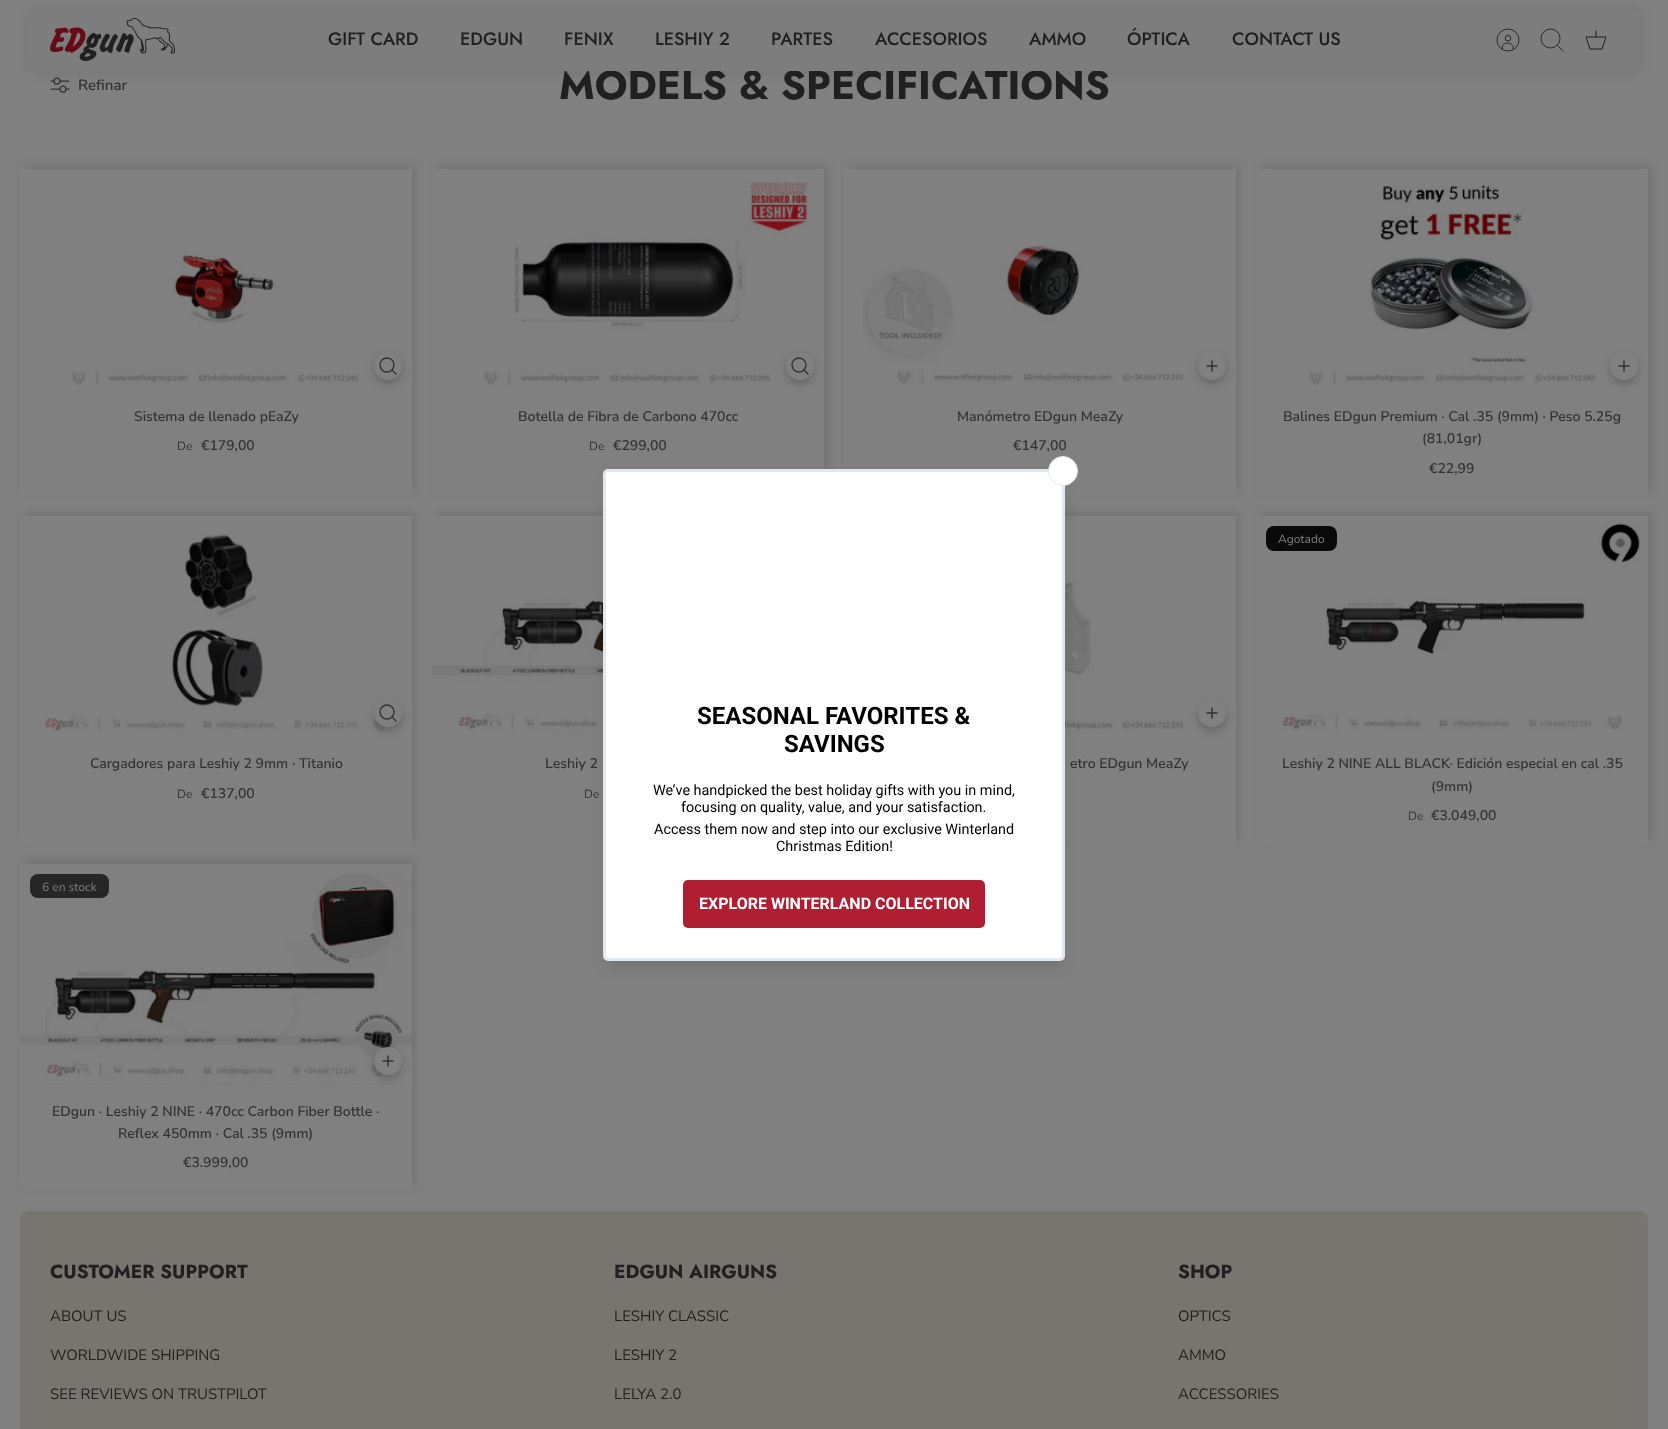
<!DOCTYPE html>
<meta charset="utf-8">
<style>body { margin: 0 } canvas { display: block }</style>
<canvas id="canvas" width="1668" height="1429"></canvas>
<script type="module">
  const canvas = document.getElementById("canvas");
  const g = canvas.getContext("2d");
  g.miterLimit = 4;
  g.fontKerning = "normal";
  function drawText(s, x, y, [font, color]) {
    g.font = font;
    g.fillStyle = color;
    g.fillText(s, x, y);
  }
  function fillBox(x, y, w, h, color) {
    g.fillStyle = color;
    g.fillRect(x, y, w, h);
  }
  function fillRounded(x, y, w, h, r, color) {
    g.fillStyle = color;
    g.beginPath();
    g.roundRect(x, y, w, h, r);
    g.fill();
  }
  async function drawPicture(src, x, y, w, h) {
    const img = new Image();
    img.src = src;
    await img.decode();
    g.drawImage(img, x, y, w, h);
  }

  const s1 = ["bold 40px Jost", "#202020"];
  const s2 = ["500 18px Jost", "#202020"];
  const s3 = ["600 15px Nunito Sans", "#333333"];
  const s4 = ["600 14px Nunito Sans", "#333333"];
  const s5 = ["12px Nunito Sans", "#333333"];
  const s6 = ["12px Nunito Sans", "#808080"];
  const s7 = ["bold 24px Roboto", "#000000"];
  const s8 = ["14.4px Roboto", "#000000"];
  const s9 = ["bold 16px Roboto", "#FFFFFF"];
  const s10 = ["bold 19px Jost", "#202020"];
  const s11 = ["15px Nunito Sans", "#202020"];

  fillBox(0, 0, 1668, 1429, "#808080");
  await drawPicture("pic2.png", 50, 77, 20, 16);
  g.fillStyle = "rgba(0, 0, 0, 0.1)";
  g.filter = "blur(6px)";
  g.beginPath();
  g.roundRect(29, 9, 1612, 63, 8);
  g.fill();
  g.filter = "none";
  drawText("MODELS & SPECIFICATIONS", 559, 99, s1);
  fillRounded(28, 8, 1612, 63, 8, "#7D7D7D");
  await drawPicture("pic1.png", 50, 18, 125, 43);
  drawText("GIFT CARD", 328, 45, s2);
  drawText("EDGUN", 460, 45, s2);
  drawText("FENIX", 564, 45, s2);
  drawText("LESHIY 2", 655, 45, s2);
  drawText("PARTES", 771, 45, s2);
  drawText("ACCESORIOS", 875, 45, s2);
  drawText("AMMO", 1029, 45, s2);
  drawText("ÓPTICA", 1127, 45, s2);
  drawText("CONTACT US", 1232, 45, s2);
  g.beginPath();
  g.moveTo(1513, 50);
  g.bezierCurveTo(1515.5, 41, 1500, 40.5, 1502.5, 49.5);
  g.strokeStyle = "#202020";
  g.lineWidth = 0.9;
  g.stroke();
  g.beginPath();
  g.arc(1507.9, 38.2, 2.8, 0, Math.PI * 2);
  g.stroke();
  g.beginPath();
  g.arc(1508, 40, 11, 0, Math.PI * 2);
  g.stroke();
  g.beginPath();
  g.arc(1550.5, 38.5, 9.5, 0, Math.PI * 2);
  g.stroke();
  g.beginPath();
  g.moveTo(1557.5, 45.5);
  g.lineTo(1563, 51);
  g.lineCap = "square";
  g.stroke();
  g.beginPath();
  g.moveTo(1586, 37);
  g.lineTo(1606, 37);
  g.lineTo(1602, 49);
  g.lineTo(1590, 49);
  g.closePath();
  g.lineWidth = 1;
  g.lineCap = "butt";
  g.stroke();
  g.beginPath();
  g.moveTo(1596, 37);
  g.lineTo(1596, 31);
  g.lineCap = "square";
  g.stroke();
  drawText("Refinar", 78, 90, s3);
  g.save();
  g.beginPath();
  g.moveTo(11, 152);
  g.lineTo(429, 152);
  g.lineTo(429, 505);
  g.lineTo(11, 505);
  g.closePath();
  g.moveTo(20, 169);
  g.lineTo(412, 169);
  g.lineTo(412, 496);
  g.lineTo(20, 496);
  g.closePath();
  g.clip("evenodd");
  g.fillStyle = "rgba(0, 0, 0, 0.1)";
  g.filter = "blur(4px)";
  g.beginPath();
  g.rect(24, 165, 392, 327);
  g.fill();
  g.filter = "none";
  g.restore();
  await drawPicture("pic3.png", 72, 254, 287, 131);
  g.fillStyle = "rgba(0, 0, 0, 0.2)";
  g.filter = "blur(4px)";
  g.beginPath();
  g.roundRect(374, 356, 28, 28, 14);
  g.fill();
  g.filter = "none";
  g.fillStyle = "#808080";
  g.beginPath();
  g.arc(388, 366, 14, 0, Math.PI * 2);
  g.fill();
  g.beginPath();
  g.arc(387, 365, 7, 0, Math.PI * 2);
  g.strokeStyle = "#333333";
  g.lineWidth = 1.4;
  g.stroke();
  g.beginPath();
  g.moveTo(392, 370);
  g.lineTo(396, 374);
  g.stroke();
  drawText("Sistema de llenado pEaZy", 134, 421, s4);
  drawText("De", 177, 450, s5);
  drawText("€179,00", 201, 450, s4);
  g.save();
  g.beginPath();
  g.moveTo(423, 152);
  g.lineTo(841, 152);
  g.lineTo(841, 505);
  g.lineTo(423, 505);
  g.closePath();
  g.moveTo(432, 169);
  g.lineTo(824, 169);
  g.lineTo(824, 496);
  g.lineTo(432, 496);
  g.closePath();
  g.clip("evenodd");
  g.fillStyle = "rgba(0, 0, 0, 0.1)";
  g.filter = "blur(4px)";
  g.beginPath();
  g.rect(436, 165, 392, 327);
  g.fill();
  g.filter = "none";
  g.restore();
  await drawPicture("pic4.png", 484, 181, 324, 204);
  g.fillStyle = "rgba(0, 0, 0, 0.2)";
  g.filter = "blur(4px)";
  g.beginPath();
  g.roundRect(786, 356, 28, 28, 14);
  g.fill();
  g.filter = "none";
  g.fillStyle = "#808080";
  g.beginPath();
  g.arc(800, 366, 14, 0, Math.PI * 2);
  g.fill();
  g.beginPath();
  g.arc(799, 365, 7, 0, Math.PI * 2);
  g.stroke();
  g.beginPath();
  g.moveTo(804, 370);
  g.lineTo(808, 374);
  g.stroke();
  drawText("Botella de Fibra de Carbono 470cc", 518, 421, s4);
  drawText("De", 589, 450, s5);
  drawText("€299,00", 613, 450, s4);
  g.save();
  g.beginPath();
  g.moveTo(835, 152);
  g.lineTo(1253, 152);
  g.lineTo(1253, 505);
  g.lineTo(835, 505);
  g.closePath();
  g.moveTo(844, 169);
  g.lineTo(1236, 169);
  g.lineTo(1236, 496);
  g.lineTo(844, 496);
  g.closePath();
  g.clip("evenodd");
  g.fillStyle = "rgba(0, 0, 0, 0.1)";
  g.filter = "blur(4px)";
  g.beginPath();
  g.rect(848, 165, 392, 327);
  g.fill();
  g.filter = "none";
  g.restore();
  await drawPicture("pic5.png", 862, 244, 321, 140);
  g.fillStyle = "rgba(0, 0, 0, 0.2)";
  g.filter = "blur(4px)";
  g.beginPath();
  g.roundRect(1198, 356, 28, 28, 14);
  g.fill();
  g.filter = "none";
  g.fillStyle = "#808080";
  g.beginPath();
  g.arc(1212, 366, 14, 0, Math.PI * 2);
  g.fill();
  g.beginPath();
  g.moveTo(1212, 361);
  g.lineTo(1212, 371);
  g.moveTo(1207, 366);
  g.lineTo(1217, 366);
  g.lineWidth = 1.5;
  g.lineCap = "round";
  g.lineJoin = "round";
  g.stroke();
  drawText("Manómetro EDgun MeaZy", 957, 421, s4);
  drawText("€147,00", 1013, 450, s4);
  g.save();
  g.beginPath();
  g.moveTo(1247, 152);
  g.lineTo(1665, 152);
  g.lineTo(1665, 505);
  g.lineTo(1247, 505);
  g.closePath();
  g.moveTo(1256, 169);
  g.lineTo(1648, 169);
  g.lineTo(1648, 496);
  g.lineTo(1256, 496);
  g.closePath();
  g.clip("evenodd");
  g.fillStyle = "rgba(0, 0, 0, 0.1)";
  g.filter = "blur(4px)";
  g.beginPath();
  g.rect(1260, 165, 392, 327);
  g.fill();
  g.filter = "none";
  g.restore();
  await drawPicture("pic6.png", 1309, 185, 287, 200);
  g.fillStyle = "rgba(0, 0, 0, 0.2)";
  g.filter = "blur(4px)";
  g.beginPath();
  g.roundRect(1610, 356, 28, 28, 14);
  g.fill();
  g.filter = "none";
  g.fillStyle = "#808080";
  g.beginPath();
  g.arc(1624, 366, 14, 0, Math.PI * 2);
  g.fill();
  g.beginPath();
  g.moveTo(1624, 361);
  g.lineTo(1624, 371);
  g.moveTo(1619, 366);
  g.lineTo(1629, 366);
  g.stroke();
  drawText("Balines EDgun Premium · Cal .35 (9mm) · Peso 5.25g", 1283, 421, s4);
  drawText("(81,01gr)", 1422, 443, s4);
  drawText("€22,99", 1429, 473, s4);
  g.save();
  g.beginPath();
  g.moveTo(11, 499);
  g.lineTo(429, 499);
  g.lineTo(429, 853);
  g.lineTo(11, 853);
  g.closePath();
  g.moveTo(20, 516);
  g.lineTo(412, 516);
  g.lineTo(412, 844);
  g.lineTo(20, 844);
  g.closePath();
  g.clip("evenodd");
  g.fillStyle = "rgba(0, 0, 0, 0.1)";
  g.filter = "blur(4px)";
  g.beginPath();
  g.rect(24, 512, 392, 328);
  g.fill();
  g.filter = "none";
  g.restore();
  await drawPicture("pic7.png", 45, 534, 344, 197);
  g.fillStyle = "rgba(0, 0, 0, 0.2)";
  g.filter = "blur(4px)";
  g.beginPath();
  g.roundRect(374, 703, 28, 28, 14);
  g.fill();
  g.filter = "none";
  g.fillStyle = "#808080";
  g.beginPath();
  g.arc(388, 713, 14, 0, Math.PI * 2);
  g.fill();
  g.beginPath();
  g.arc(387, 712, 7, 0, Math.PI * 2);
  g.lineWidth = 1.4;
  g.stroke();
  g.beginPath();
  g.moveTo(392, 717);
  g.lineTo(396, 721);
  g.lineCap = "square";
  g.lineJoin = "miter";
  g.stroke();
  drawText("Cargadores para Leshiy 2 9mm · Titanio", 90, 768, s4);
  drawText("De", 177, 798, s5);
  drawText("€137,00", 201, 798, s4);
  g.save();
  g.beginPath();
  g.rect(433, 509, 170, 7);
  g.clip();
  g.fillStyle = "rgba(0, 0, 0, 0.1)";
  g.filter = "blur(4px)";
  g.beginPath();
  g.rect(436, 512, 392, 328);
  g.fill();
  g.filter = "none";
  g.restore();
  await drawPicture("pic8.png", 432, 521, 171, 209);
  drawText("Leshiy 2", 545, 768, s4);
  drawText("De", 584, 798, s5);
  g.save();
  g.beginPath();
  g.moveTo(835, 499);
  g.lineTo(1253, 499);
  g.lineTo(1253, 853);
  g.lineTo(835, 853);
  g.closePath();
  g.moveTo(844, 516);
  g.lineTo(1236, 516);
  g.lineTo(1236, 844);
  g.lineTo(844, 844);
  g.closePath();
  g.clip("evenodd");
  g.fillStyle = "rgba(0, 0, 0, 0.1)";
  g.filter = "blur(4px)";
  g.beginPath();
  g.rect(848, 512, 392, 328);
  g.fill();
  g.filter = "none";
  g.restore();
  await drawPicture("pic9.png", 1065, 563, 119, 171);
  g.fillStyle = "rgba(0, 0, 0, 0.2)";
  g.filter = "blur(4px)";
  g.beginPath();
  g.roundRect(1198, 703, 28, 28, 14);
  g.fill();
  g.filter = "none";
  g.fillStyle = "#808080";
  g.beginPath();
  g.arc(1212, 713, 14, 0, Math.PI * 2);
  g.fill();
  g.beginPath();
  g.moveTo(1212, 708);
  g.lineTo(1212, 718);
  g.moveTo(1207, 713);
  g.lineTo(1217, 713);
  g.lineWidth = 1.5;
  g.lineCap = "round";
  g.lineJoin = "round";
  g.stroke();
  drawText("etro EDgun MeaZy", 1070, 768, s4);
  g.save();
  g.beginPath();
  g.moveTo(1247, 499);
  g.lineTo(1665, 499);
  g.lineTo(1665, 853);
  g.lineTo(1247, 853);
  g.closePath();
  g.moveTo(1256, 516);
  g.lineTo(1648, 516);
  g.lineTo(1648, 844);
  g.lineTo(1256, 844);
  g.closePath();
  g.clip("evenodd");
  g.fillStyle = "rgba(0, 0, 0, 0.1)";
  g.filter = "blur(4px)";
  g.beginPath();
  g.rect(1260, 512, 392, 328);
  g.fill();
  g.filter = "none";
  g.restore();
  await drawPicture("pic10.png", 1282, 523, 358, 207);
  fillRounded(1266, 526, 71, 25, 8, "#0A0A0A");
  drawText("Agotado", 1278, 543, s6);
  drawText("Leshiy 2 NINE ALL BLACK· Edición especial en cal .35", 1282, 768, s4);
  drawText("(9mm)", 1431, 791, s4);
  drawText("De", 1408, 820, s5);
  drawText("€3.049,00", 1431, 820, s4);
  g.save();
  g.beginPath();
  g.moveTo(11, 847);
  g.lineTo(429, 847);
  g.lineTo(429, 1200);
  g.lineTo(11, 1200);
  g.closePath();
  g.moveTo(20, 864);
  g.lineTo(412, 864);
  g.lineTo(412, 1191);
  g.lineTo(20, 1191);
  g.closePath();
  g.clip("evenodd");
  g.fillStyle = "rgba(0, 0, 0, 0.1)";
  g.filter = "blur(4px)";
  g.beginPath();
  g.rect(24, 860, 392, 327);
  g.fill();
  g.filter = "none";
  g.restore();
  await drawPicture("pic11.png", 20, 873, 392, 212);
  fillRounded(30, 874, 79, 24, 8, "#262626");
  drawText("6 en stock", 42, 891, s6);
  g.fillStyle = "rgba(0, 0, 0, 0.2)";
  g.filter = "blur(4px)";
  g.beginPath();
  g.roundRect(374, 1051, 28, 28, 14);
  g.fill();
  g.filter = "none";
  g.fillStyle = "#808080";
  g.beginPath();
  g.arc(388, 1061, 14, 0, Math.PI * 2);
  g.fill();
  g.beginPath();
  g.moveTo(388, 1056);
  g.lineTo(388, 1066);
  g.moveTo(383, 1061);
  g.lineTo(393, 1061);
  g.stroke();
  drawText("EDgun · Leshiy 2 NINE · 470cc Carbon Fiber Bottle ·", 52, 1116, s4);
  drawText("Reflex 450mm · Cal .35 (9mm)", 118, 1138, s4);
  drawText("€3.999,00", 183, 1167, s4);
  g.fillStyle = "rgba(0, 0, 0, 0.1)";
  g.filter = "blur(7.5px)";
  g.beginPath();
  g.roundRect(606, 482, 456, 486, 2);
  g.fill();
  g.filter = "none";
  g.fillStyle = "#FFFFFF";
  g.beginPath();
  g.roundRect(604.5, 470.5, 459, 489, 3.5);
  g.fill();
  g.strokeStyle = "#E2E8F0";
  g.lineWidth = 3;
  g.lineJoin = "miter";
  g.stroke();
  g.beginPath();
  g.arc(1063, 471, 14.5, 0, Math.PI * 2);
  g.fill();
  g.lineWidth = 1;
  g.stroke();
  g.save();
  g.beginPath();
  g.rect(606, 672, 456, 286);
  g.clip();
  g.fillStyle = "rgba(0, 0, 0, 0.12)";
  g.filter = "blur(10px)";
  g.beginPath();
  g.roundRect(609, 675, 450, 280, 2);
  g.fill();
  g.filter = "none";
  g.restore();
  fillRounded(606, 672, 456, 286, 5, "#FFFFFF");
  drawText("SEASONAL FAVORITES &", 697, 724, s7);
  drawText("SAVINGS", 784, 752, s7);
  drawText("We’ve handpicked the best holiday gifts with you in mind,", 653, 795, s8);
  drawText("focusing on quality, value, and your satisfaction.", 681, 812, s8);
  drawText("Access them now and step into our exclusive Winterland", 654, 834, s8);
  drawText("Christmas Edition!", 776, 851, s8);
  fillRounded(683, 880, 302, 48, 5, "#AF1F31");
  drawText("EXPLORE WINTERLAND COLLECTION", 699, 909, s9);
  fillRounded(20, 1211, 1628, 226, 8, "#77756F");
  drawText("CUSTOMER SUPPORT", 50, 1278, s10);
  drawText("ABOUT US", 50, 1321, s11);
  drawText("WORLDWIDE SHIPPING", 50, 1360, s11);
  drawText("SEE REVIEWS ON TRUSTPILOT", 50, 1399, s11);
  drawText("EDGUN AIRGUNS", 614, 1278, s10);
  drawText("LESHIY CLASSIC", 614, 1321, s11);
  drawText("LESHIY 2", 614, 1360, s11);
  drawText("LELYA 2.0", 614, 1399, s11);
  drawText("SHOP", 1178, 1278, s10);
  drawText("OPTICS", 1178, 1321, s11);
  drawText("AMMO", 1178, 1360, s11);
  drawText("ACCESSORIES", 1178, 1399, s11);
</script>
